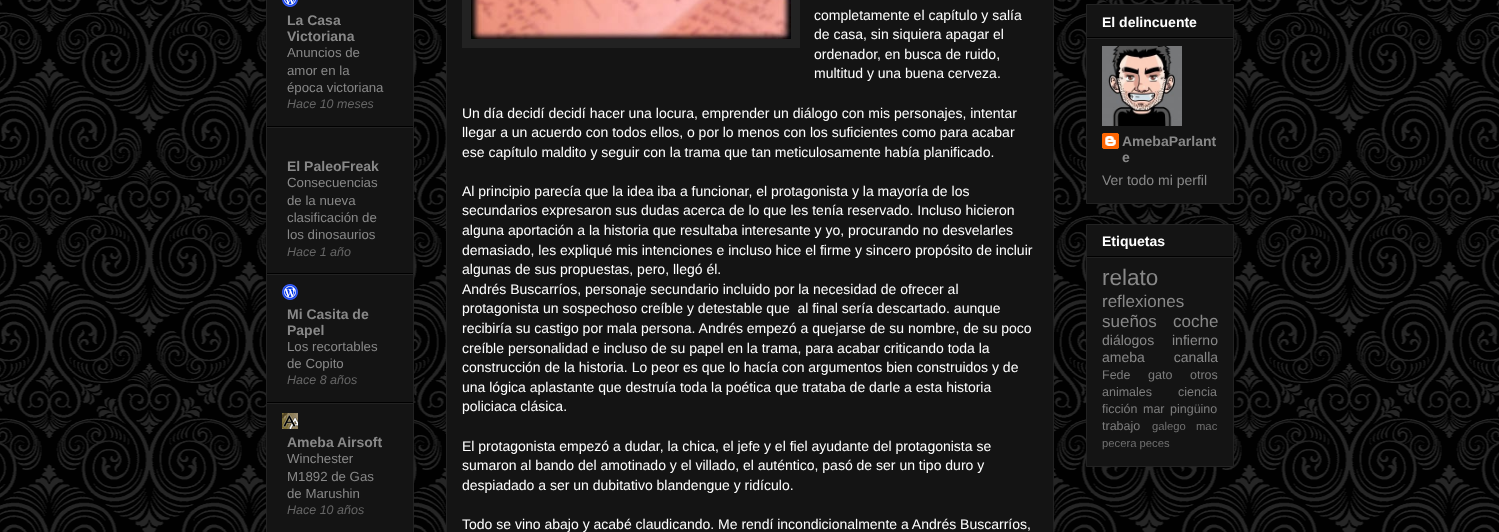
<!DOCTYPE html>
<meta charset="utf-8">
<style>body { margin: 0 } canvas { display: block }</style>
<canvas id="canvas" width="1499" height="532"></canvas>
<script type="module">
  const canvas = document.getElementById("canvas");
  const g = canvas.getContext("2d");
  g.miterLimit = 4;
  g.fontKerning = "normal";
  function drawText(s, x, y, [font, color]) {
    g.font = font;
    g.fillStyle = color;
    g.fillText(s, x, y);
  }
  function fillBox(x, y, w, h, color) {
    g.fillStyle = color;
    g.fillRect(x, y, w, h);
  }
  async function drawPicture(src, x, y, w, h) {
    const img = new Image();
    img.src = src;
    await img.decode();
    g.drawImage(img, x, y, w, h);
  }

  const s1 = ["bold 14px Liberation Sans", "#888888"];
  const s2 = ["13.25px Liberation Sans", "#888888"];
  const s3 = ["italic 12.5px Liberation Sans", "#666666"];
  const s4 = ["14px Liberation Sans", "#FFFFFF"];
  const s5 = ["bold 14px Liberation Sans", "#FFFFFF"];
  const s6 = ["14px Liberation Sans", "#888888"];
  const s7 = ["22.5px Liberation Sans", "#888888"];
  const s8 = ["17px Liberation Sans", "#888888"];
  const s9 = ["12.5px Liberation Sans", "#7C7C7C"];
  const s10 = ["11.25px Liberation Sans", "#717171"];

  fillBox(0, 0, 1499, 532, "#000000");
  await drawPicture("pic1.png", 0, 0, 1499, 532);
  g.fillStyle = "#141414";
  g.beginPath();
  g.rect(266.5, -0.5, 147, 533);
  g.fill();
  g.strokeStyle = "#222222";
  g.stroke();
  fillBox(267, 126, 146, 1, "#000000");
  await drawPicture("pic2.png", 282, 0, 16, 7);
  drawText("La Casa", 287, 25, s1);
  drawText("Victoriana", 287, 41, s1);
  drawText("Anuncios de", 287, 57, s2);
  drawText("amor en la", 287, 75, s2);
  drawText("época victoriana", 287, 92, s2);
  drawText("Hace 10 meses", 287, 108, s3);
  fillBox(267, 127, 146, 1, "#222222");
  fillBox(267, 273, 146, 1, "#000000");
  drawText("El PaleoFreak", 287, 171, s1);
  drawText("Consecuencias", 287, 187, s2);
  drawText("de la nueva", 287, 205, s2);
  drawText("clasificación de", 287, 222, s2);
  drawText("los dinosaurios", 287, 239, s2);
  drawText("Hace 1 año", 287, 256, s3);
  fillBox(267, 274, 146, 1, "#222222");
  fillBox(267, 402, 146, 1, "#000000");
  await drawPicture("pic3.png", 282, 284, 16, 16);
  drawText("Mi Casita de", 287, 319, s1);
  drawText("Papel", 287, 335, s1);
  drawText("Los recortables", 287, 351, s2);
  drawText("de Copito", 287, 368, s2);
  drawText("Hace 8 años", 287, 384, s3);
  fillBox(267, 403, 146, 1, "#222222");
  await drawPicture("pic4.png", 282, 413, 16, 16);
  drawText("Ameba Airsoft", 287, 447, s1);
  drawText("Winchester", 287, 463, s2);
  drawText("M1892 de Gas", 287, 481, s2);
  drawText("de Marushin", 287, 498, s2);
  drawText("Hace 10 años", 287, 514, s3);
  g.fillStyle = "#141414";
  g.beginPath();
  g.rect(446.5, -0.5, 607, 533);
  g.fill();
  g.stroke();
  fillBox(462, 0, 338, 48, "#222222");
  await drawPicture("pic5.png", 471, 0, 320, 39);
  drawText("completamente el capítulo y salía", 814, 20, s4);
  drawText("de casa, sin siquiera apagar el", 814, 39, s4);
  drawText("ordenador, en busca de ruido,", 814, 59, s4);
  drawText("multitud y una buena cerveza.", 814, 78, s4);
  drawText("Un día decidí decidí hacer una locura, emprender un diálogo con mis personajes, intentar", 462, 118, s4);
  drawText("llegar a un acuerdo con todos ellos, o por lo menos con los suficientes como para acabar", 462, 137, s4);
  drawText("ese capítulo maldito y seguir con la trama que tan meticulosamente había planificado.", 462, 157, s4);
  drawText("Al principio parecía que la idea iba a funcionar, el protagonista y la mayoría de los", 462, 196, s4);
  drawText("secundarios expresaron sus dudas acerca de lo que les tenía reservado. Incluso hicieron", 462, 215, s4);
  drawText("alguna aportación a la historia que resultaba interesante y yo, procurando no desvelarles", 462, 235, s4);
  drawText("demasiado, les expliqué mis intenciones e incluso hice el firme y sincero propósito de incluir", 462, 255, s4);
  drawText("algunas de sus propuestas, pero, llegó él.", 462, 274, s4);
  drawText("Andrés Buscarríos, personaje secundario incluido por la necesidad de ofrecer al", 462, 294, s4);
  drawText("protagonista un sospechoso creíble y detestable que  al final sería descartado. aunque", 462, 313, s4);
  drawText("recibiría su castigo por mala persona. Andrés empezó a quejarse de su nombre, de su poco", 462, 333, s4);
  drawText("creíble personalidad e incluso de su papel en la trama, para acabar criticando toda la", 462, 353, s4);
  drawText("construcción de la historia. Lo peor es que lo hacía con argumentos bien construidos y de", 462, 372, s4);
  drawText("una lógica aplastante que destruía toda la poética que trataba de darle a esta historia", 462, 392, s4);
  drawText("policiaca clásica.", 462, 411, s4);
  drawText("El protagonista empezó a dudar, la chica, el jefe y el fiel ayudante del protagonista se", 462, 451, s4);
  drawText("sumaron al bando del amotinado y el villado, el auténtico, pasó de ser un tipo duro y", 462, 470, s4);
  drawText("despiadado a ser un dubitativo blandengue y ridículo.", 462, 490, s4);
  drawText("Todo se vino abajo y acabé claudicando. Me rendí incondicionalmente a Andrés Buscarríos,", 462, 529, s4);
  g.fillStyle = "#141414";
  g.beginPath();
  g.rect(1086.5, 4.5, 147, 199);
  g.fill();
  g.stroke();
  fillBox(1087, 37, 146, 1, "#000000");
  drawText("El delincuente", 1102, 27, s5);
  fillBox(1087, 38, 146, 1, "#222222");
  await drawPicture("pic6.png", 1102, 46, 80, 80);
  await drawPicture("pic7.png", 1102, 133, 17, 16);
  drawText("AmebaParlant", 1122, 146, s1);
  drawText("e", 1122, 162, s1);
  drawText("Ver todo mi perfil", 1102, 185, s6);
  g.fillStyle = "#141414";
  g.beginPath();
  g.rect(1086.5, 224.5, 147, 242);
  g.fill();
  g.stroke();
  fillBox(1087, 256, 146, 1, "#000000");
  drawText("Etiquetas", 1102, 246, s5);
  fillBox(1087, 257, 146, 1, "#222222");
  drawText("relato", 1102, 285, s7);
  drawText("reflexiones", 1102, 307, s8);
  drawText("sueños", 1102, 327, s8);
  drawText("coche", 1173, 327, s8);
  drawText("diálogos", 1102, 345, s6);
  drawText("infierno", 1172, 345, s6);
  g.wordSpacing = "25px";
  drawText("ameba canalla", 1102, 362, s6);
  g.wordSpacing = "0px";
  drawText("Fede", 1102, 379, s9);
  drawText("gato", 1148, 379, s9);
  drawText("otros", 1190, 379, s9);
  drawText("animales", 1102, 396, s9);
  drawText("ciencia", 1178, 396, s9);
  drawText("ficción", 1102, 413, s9);
  drawText("mar", 1143, 413, s9);
  drawText("pingüino", 1170, 413, s9);
  drawText("trabajo", 1102, 430, s9);
  drawText("galego", 1152, 430, s10);
  drawText("mac", 1196, 430, s10);
  drawText("pecera peces", 1102, 447, s10);
</script>
